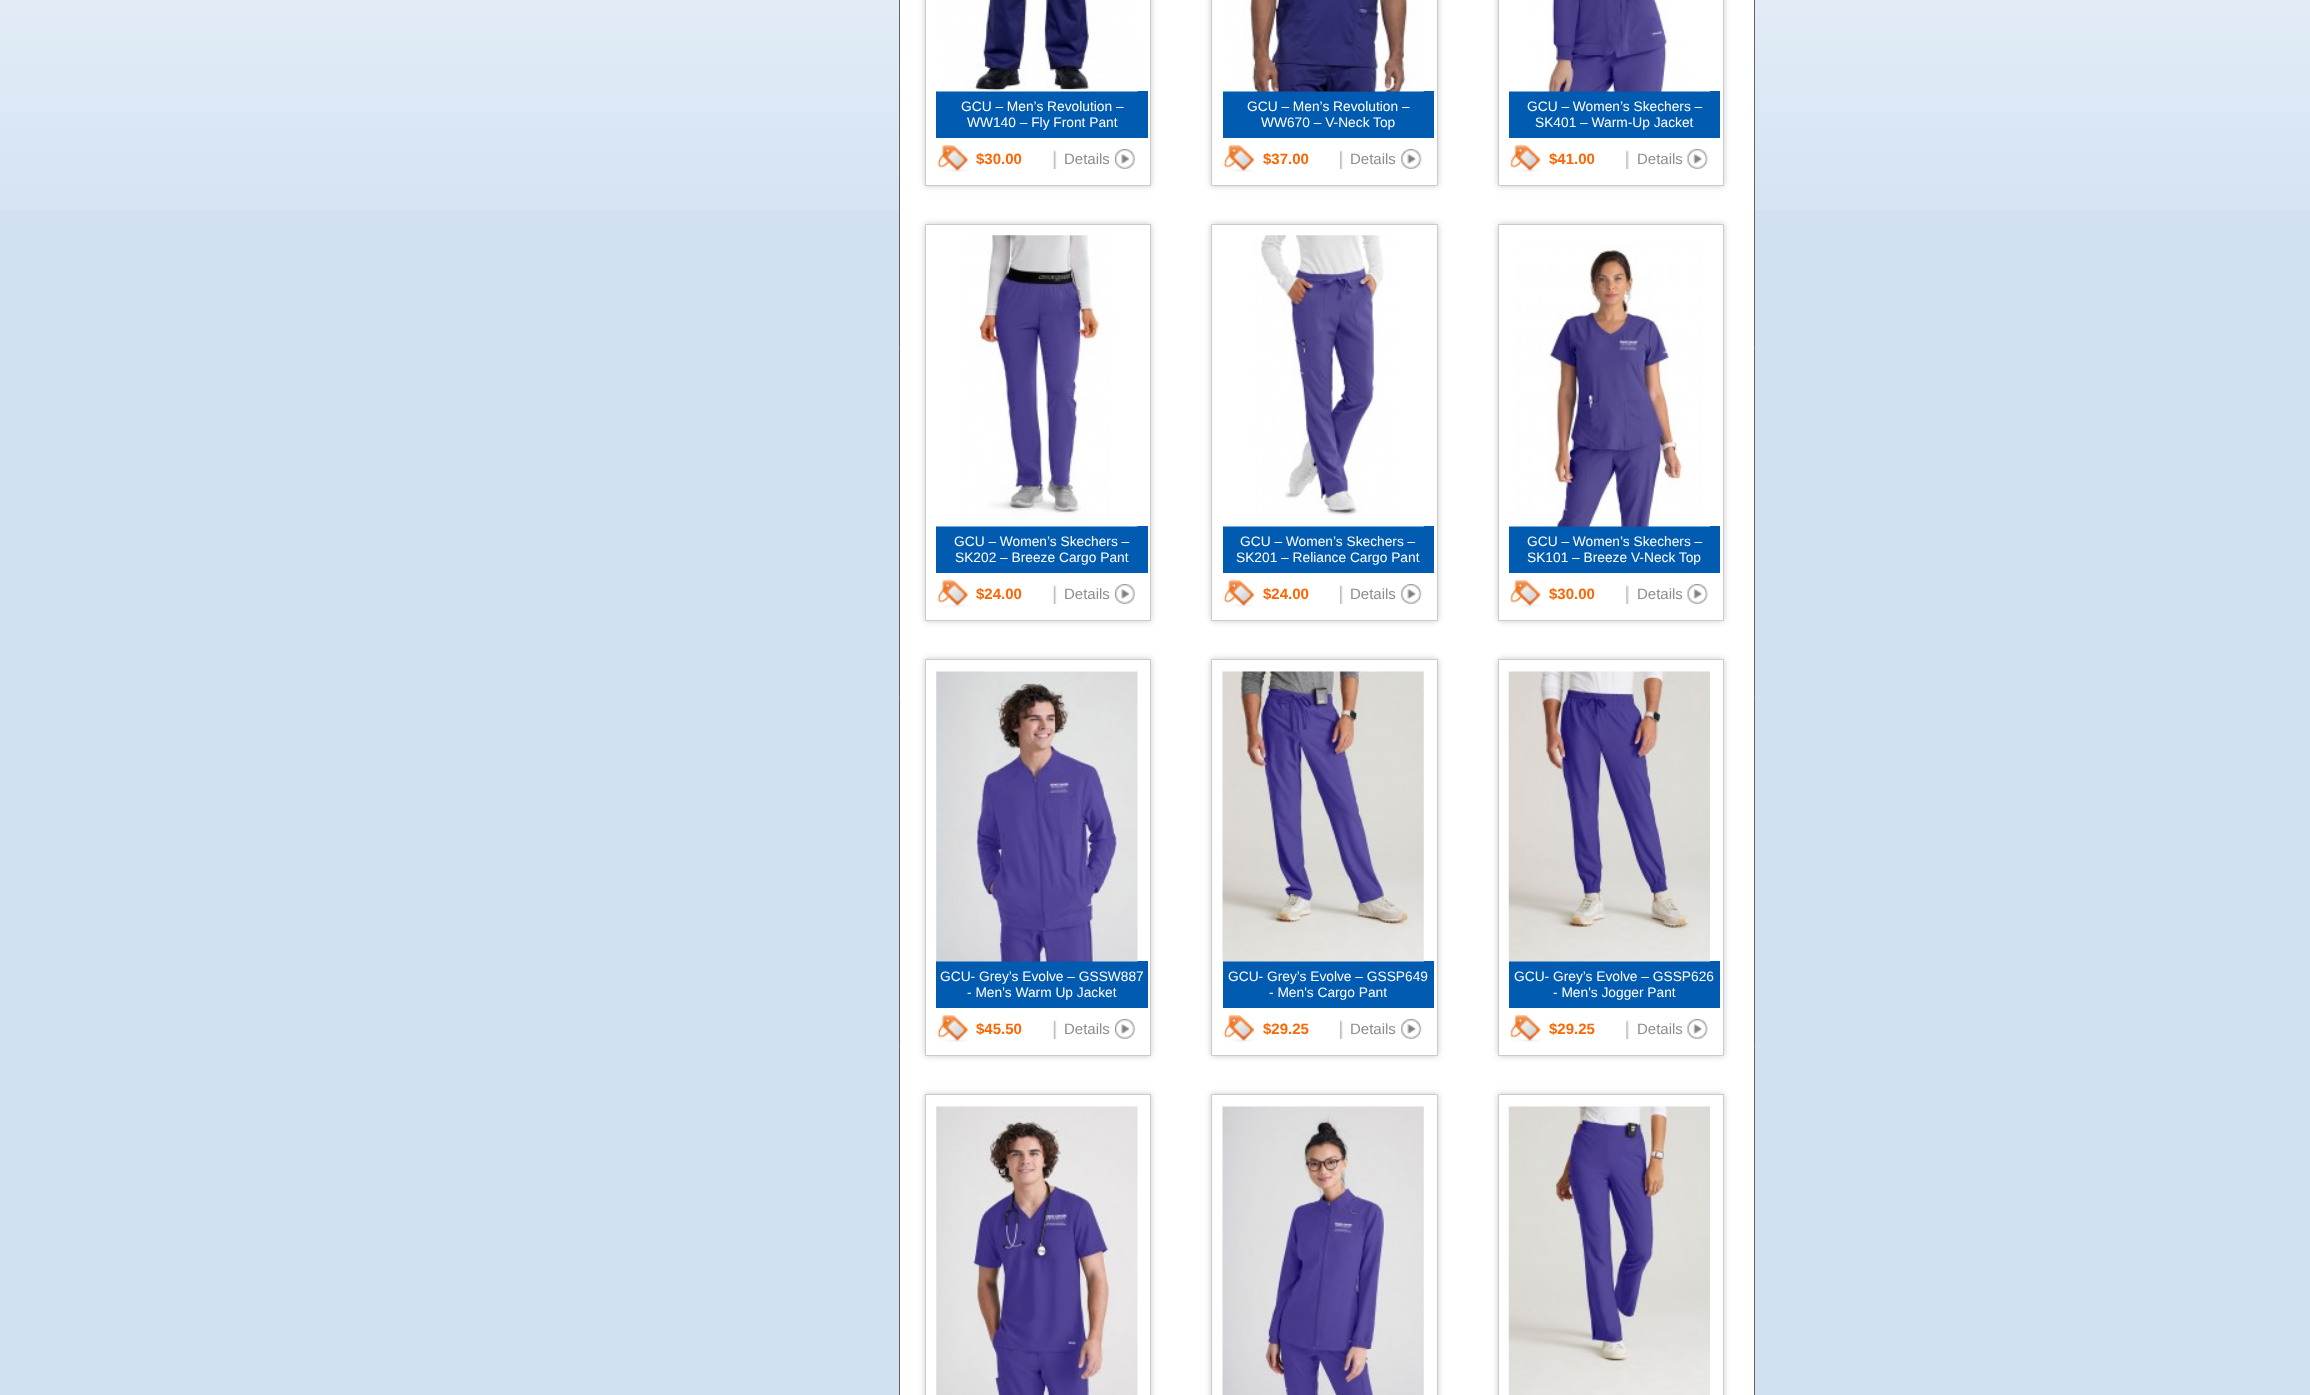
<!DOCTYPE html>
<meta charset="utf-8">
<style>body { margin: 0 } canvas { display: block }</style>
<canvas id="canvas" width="2310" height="1395"></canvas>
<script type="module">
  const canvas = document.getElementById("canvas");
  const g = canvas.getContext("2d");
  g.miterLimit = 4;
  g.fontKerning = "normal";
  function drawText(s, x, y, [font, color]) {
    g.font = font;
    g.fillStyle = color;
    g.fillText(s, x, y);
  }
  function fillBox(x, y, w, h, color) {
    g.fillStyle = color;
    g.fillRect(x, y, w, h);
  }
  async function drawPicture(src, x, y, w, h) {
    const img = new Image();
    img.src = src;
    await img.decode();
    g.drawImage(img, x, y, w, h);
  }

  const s1 = ["13.75px Liberation Sans", "#FFFFFF"];
  const s2 = ["bold 15px Liberation Sans", "#FC6603"];
  const s3 = ["15px Liberation Sans", "#8D8D8D"];

  fillBox(0, 0, 2310, 1395, "#D1E1F2");
  await drawPicture("pic1.png", 0, 0, 2310, 210);
  g.fillStyle = "#FFFFFF";
  g.beginPath();
  g.rect(899.5, -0.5, 855, 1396);
  g.fill();
  g.strokeStyle = "#636363";
  g.stroke();
  g.save();
  g.beginPath();
  g.moveTo(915, 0);
  g.lineTo(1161, 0);
  g.lineTo(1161, 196);
  g.lineTo(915, 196);
  g.closePath();
  g.moveTo(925, -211);
  g.lineTo(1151, -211);
  g.lineTo(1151, 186);
  g.lineTo(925, 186);
  g.closePath();
  g.clip("evenodd");
  g.fillStyle = "#CCCACA";
  g.filter = "blur(3px)";
  g.beginPath();
  g.rect(925, -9, 226, 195);
  g.fill();
  g.filter = "none";
  g.restore();
  g.strokeStyle = "#CCCACA";
  g.strokeRect(925.5, -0.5, 225, 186);
  fillBox(936, 91, 212, 47, "#015BB0");
  await drawPicture("pic2.png", 936, 0, 202, 92);
  drawText("GCU – Men’s Revolution –", 961, 111, s1);
  drawText("WW140 – Fly Front Pant", 967, 127, s1);
  await drawPicture("pic3.png", 937, 145, 31, 27);
  drawText("$30.00", 976, 164, s2);
  await drawPicture("pic4.png", 1053, 150, 4, 19);
  await drawPicture("pic5.png", 1115, 149, 20, 20);
  drawText("Details", 1064, 164, s3);
  g.fillStyle = "#CCCACA";
  g.filter = "blur(3px)";
  g.beginPath();
  g.rect(1211, -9, 227, 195);
  g.fill();
  g.filter = "none";
  g.fillStyle = "#FFFFFF";
  g.beginPath();
  g.rect(1211.5, -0.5, 226, 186);
  g.fill();
  g.stroke();
  fillBox(1223, 91, 211, 47, "#015BB0");
  await drawPicture("pic6.png", 1223, 0, 201, 92);
  drawText("GCU – Men’s Revolution –", 1247, 111, s1);
  drawText("WW670 – V-Neck Top", 1261, 127, s1);
  await drawPicture("pic7.png", 1223, 145, 31, 27);
  drawText("$37.00", 1263, 164, s2);
  await drawPicture("pic8.png", 1340, 150, 3, 19);
  await drawPicture("pic9.png", 1401, 149, 21, 20);
  drawText("Details", 1350, 164, s3);
  g.fillStyle = "#CCCACA";
  g.filter = "blur(3px)";
  g.beginPath();
  g.rect(1498, -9, 226, 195);
  g.fill();
  g.filter = "none";
  g.fillStyle = "#FFFFFF";
  g.beginPath();
  g.rect(1498.5, -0.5, 225, 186);
  g.fill();
  g.stroke();
  fillBox(1509, 91, 211, 47, "#015BB0");
  await drawPicture("pic10.png", 1509, 0, 201, 92);
  drawText("GCU – Women’s Skechers –", 1527, 111, s1);
  drawText("SK401 – Warm-Up Jacket", 1535, 127, s1);
  await drawPicture("pic11.png", 1510, 145, 31, 27);
  drawText("$41.00", 1549, 164, s2);
  await drawPicture("pic12.png", 1626, 150, 3, 19);
  await drawPicture("pic13.png", 1687, 149, 21, 20);
  drawText("Details", 1637, 164, s3);
  g.save();
  g.beginPath();
  g.moveTo(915, 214);
  g.lineTo(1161, 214);
  g.lineTo(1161, 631);
  g.lineTo(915, 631);
  g.closePath();
  g.moveTo(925, 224);
  g.lineTo(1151, 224);
  g.lineTo(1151, 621);
  g.lineTo(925, 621);
  g.closePath();
  g.clip("evenodd");
  g.fillStyle = "#CCCACA";
  g.filter = "blur(3px)";
  g.beginPath();
  g.rect(925, 224, 226, 397);
  g.fill();
  g.filter = "none";
  g.restore();
  g.strokeRect(925.5, 224.5, 225, 396);
  fillBox(936, 526, 212, 47, "#015BB0");
  await drawPicture("pic14.png", 936, 235, 202, 292);
  drawText("GCU – Women’s Skechers –", 954, 546, s1);
  drawText("SK202 – Breeze Cargo Pant", 955, 562, s1);
  await drawPicture("pic3.png", 937, 580, 31, 27);
  drawText("$24.00", 976, 599, s2);
  await drawPicture("pic4.png", 1053, 585, 4, 19);
  await drawPicture("pic5.png", 1115, 584, 20, 20);
  drawText("Details", 1064, 599, s3);
  g.fillStyle = "#CCCACA";
  g.filter = "blur(3px)";
  g.beginPath();
  g.rect(1211, 224, 227, 397);
  g.fill();
  g.filter = "none";
  g.fillStyle = "#FFFFFF";
  g.beginPath();
  g.rect(1211.5, 224.5, 226, 396);
  g.fill();
  g.stroke();
  fillBox(1223, 526, 211, 47, "#015BB0");
  await drawPicture("pic15.png", 1223, 235, 201, 292);
  drawText("GCU – Women’s Skechers –", 1240, 546, s1);
  drawText("SK201 – Reliance Cargo Pant", 1236, 562, s1);
  await drawPicture("pic7.png", 1223, 580, 31, 27);
  drawText("$24.00", 1263, 599, s2);
  await drawPicture("pic8.png", 1340, 585, 3, 19);
  await drawPicture("pic9.png", 1401, 584, 21, 20);
  drawText("Details", 1350, 599, s3);
  g.fillStyle = "#CCCACA";
  g.filter = "blur(3px)";
  g.beginPath();
  g.rect(1498, 224, 226, 397);
  g.fill();
  g.filter = "none";
  g.fillStyle = "#FFFFFF";
  g.beginPath();
  g.rect(1498.5, 224.5, 225, 396);
  g.fill();
  g.stroke();
  fillBox(1509, 526, 211, 47, "#015BB0");
  await drawPicture("pic16.png", 1509, 245, 201, 282);
  drawText("GCU – Women’s Skechers –", 1527, 546, s1);
  drawText("SK101 – Breeze V-Neck Top", 1527, 562, s1);
  await drawPicture("pic11.png", 1510, 580, 31, 27);
  drawText("$30.00", 1549, 599, s2);
  await drawPicture("pic12.png", 1626, 585, 3, 19);
  await drawPicture("pic13.png", 1687, 584, 21, 20);
  drawText("Details", 1637, 599, s3);
  g.save();
  g.beginPath();
  g.moveTo(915, 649);
  g.lineTo(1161, 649);
  g.lineTo(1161, 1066);
  g.lineTo(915, 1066);
  g.closePath();
  g.moveTo(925, 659);
  g.lineTo(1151, 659);
  g.lineTo(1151, 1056);
  g.lineTo(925, 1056);
  g.closePath();
  g.clip("evenodd");
  g.fillStyle = "#CCCACA";
  g.filter = "blur(3px)";
  g.beginPath();
  g.rect(925, 659, 226, 397);
  g.fill();
  g.filter = "none";
  g.restore();
  g.strokeRect(925.5, 659.5, 225, 396);
  fillBox(936, 961, 212, 47, "#015BB0");
  await drawPicture("pic17.png", 936, 671, 202, 291);
  drawText("GCU- Grey’s Evolve – GSSW887", 940, 981, s1);
  drawText("- Men's Warm Up Jacket", 967, 997, s1);
  await drawPicture("pic3.png", 937, 1015, 31, 27);
  drawText("$45.50", 976, 1034, s2);
  await drawPicture("pic4.png", 1053, 1020, 4, 19);
  await drawPicture("pic5.png", 1115, 1019, 20, 20);
  drawText("Details", 1064, 1034, s3);
  g.fillStyle = "#CCCACA";
  g.filter = "blur(3px)";
  g.beginPath();
  g.rect(1211, 659, 227, 397);
  g.fill();
  g.filter = "none";
  g.fillStyle = "#FFFFFF";
  g.beginPath();
  g.rect(1211.5, 659.5, 226, 396);
  g.fill();
  g.stroke();
  fillBox(1223, 961, 211, 47, "#015BB0");
  await drawPicture("pic18.png", 1222, 670, 202, 292);
  drawText("GCU- Grey’s Evolve – GSSP649", 1228, 981, s1);
  drawText("- Men's Cargo Pant", 1269, 997, s1);
  await drawPicture("pic7.png", 1223, 1015, 31, 27);
  drawText("$29.25", 1263, 1034, s2);
  await drawPicture("pic8.png", 1340, 1020, 3, 19);
  await drawPicture("pic9.png", 1401, 1019, 21, 20);
  drawText("Details", 1350, 1034, s3);
  g.fillStyle = "#CCCACA";
  g.filter = "blur(3px)";
  g.beginPath();
  g.rect(1498, 659, 226, 397);
  g.fill();
  g.filter = "none";
  g.fillStyle = "#FFFFFF";
  g.beginPath();
  g.rect(1498.5, 659.5, 225, 396);
  g.fill();
  g.stroke();
  fillBox(1509, 961, 211, 47, "#015BB0");
  await drawPicture("pic19.png", 1508, 670, 202, 292);
  drawText("GCU- Grey’s Evolve – GSSP626", 1514, 981, s1);
  drawText("- Men's Jogger Pant", 1553, 997, s1);
  await drawPicture("pic11.png", 1510, 1015, 31, 27);
  drawText("$29.25", 1549, 1034, s2);
  await drawPicture("pic12.png", 1626, 1020, 3, 19);
  await drawPicture("pic13.png", 1687, 1019, 21, 20);
  drawText("Details", 1637, 1034, s3);
  g.save();
  g.beginPath();
  g.moveTo(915, 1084);
  g.lineTo(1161, 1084);
  g.lineTo(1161, 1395);
  g.lineTo(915, 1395);
  g.closePath();
  g.moveTo(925, 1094);
  g.lineTo(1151, 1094);
  g.lineTo(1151, 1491);
  g.lineTo(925, 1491);
  g.closePath();
  g.clip("evenodd");
  g.fillStyle = "#CCCACA";
  g.filter = "blur(3px)";
  g.beginPath();
  g.rect(925, 1094, 226, 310);
  g.fill();
  g.filter = "none";
  g.restore();
  g.strokeRect(925.5, 1094.5, 225, 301);
  await drawPicture("pic20.png", 936, 1106, 202, 289);
  g.fillStyle = "#CCCACA";
  g.filter = "blur(3px)";
  g.beginPath();
  g.rect(1211, 1094, 227, 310);
  g.fill();
  g.filter = "none";
  g.fillStyle = "#FFFFFF";
  g.beginPath();
  g.rect(1211.5, 1094.5, 226, 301);
  g.fill();
  g.stroke();
  await drawPicture("pic21.png", 1222, 1106, 202, 289);
  g.fillStyle = "#CCCACA";
  g.filter = "blur(3px)";
  g.beginPath();
  g.rect(1498, 1094, 226, 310);
  g.fill();
  g.filter = "none";
  g.fillStyle = "#FFFFFF";
  g.beginPath();
  g.rect(1498.5, 1094.5, 225, 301);
  g.fill();
  g.stroke();
  await drawPicture("pic22.png", 1508, 1105, 202, 290);
</script>
